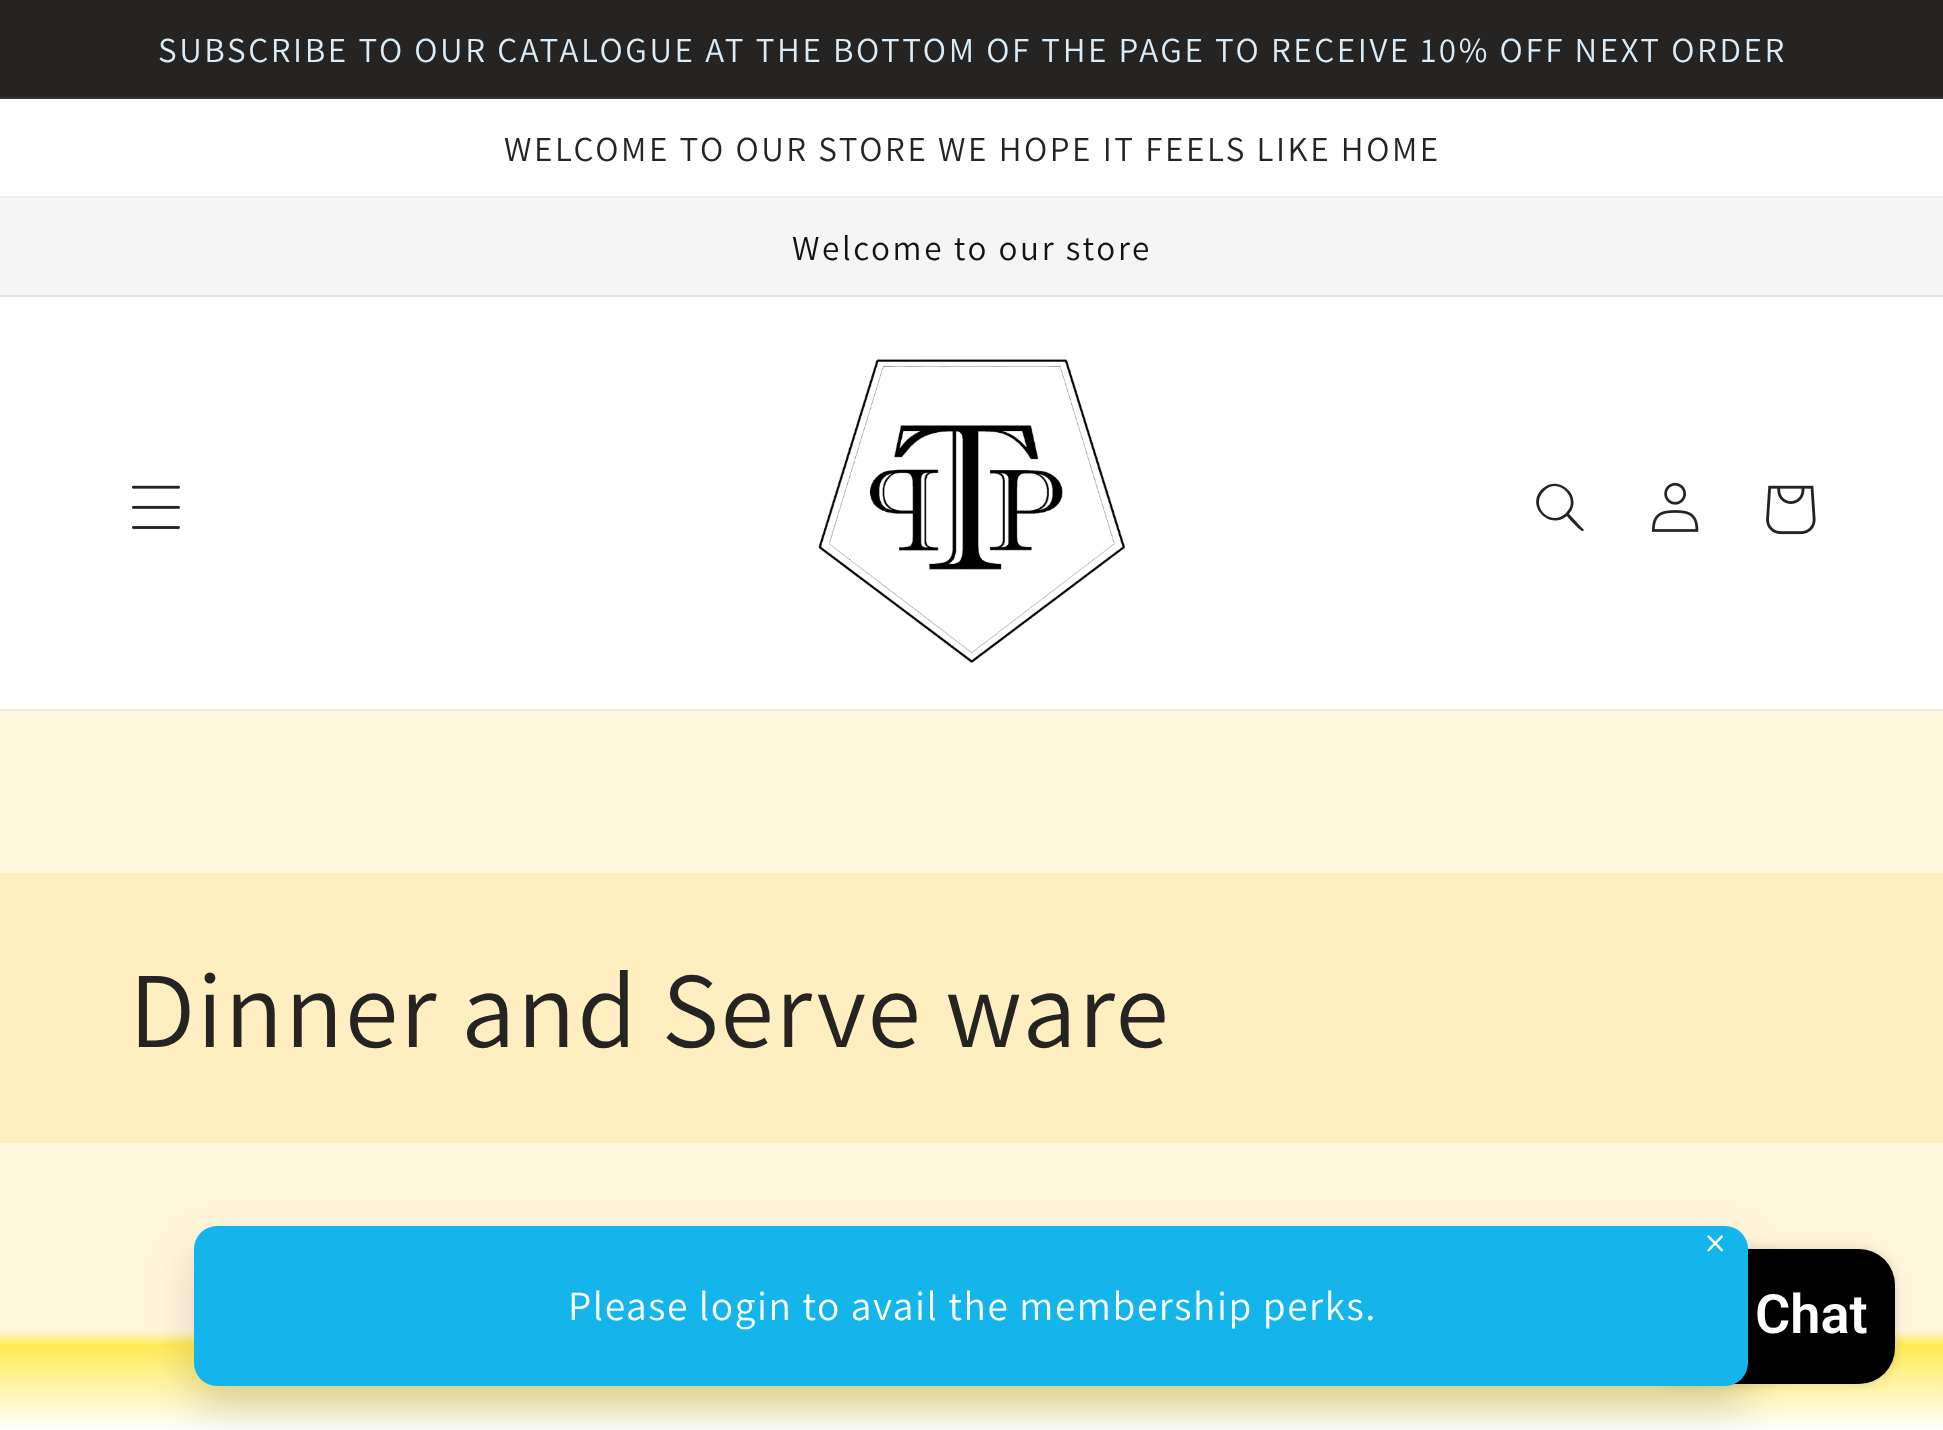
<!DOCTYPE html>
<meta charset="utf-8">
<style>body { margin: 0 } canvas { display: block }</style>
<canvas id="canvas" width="1943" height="1430"></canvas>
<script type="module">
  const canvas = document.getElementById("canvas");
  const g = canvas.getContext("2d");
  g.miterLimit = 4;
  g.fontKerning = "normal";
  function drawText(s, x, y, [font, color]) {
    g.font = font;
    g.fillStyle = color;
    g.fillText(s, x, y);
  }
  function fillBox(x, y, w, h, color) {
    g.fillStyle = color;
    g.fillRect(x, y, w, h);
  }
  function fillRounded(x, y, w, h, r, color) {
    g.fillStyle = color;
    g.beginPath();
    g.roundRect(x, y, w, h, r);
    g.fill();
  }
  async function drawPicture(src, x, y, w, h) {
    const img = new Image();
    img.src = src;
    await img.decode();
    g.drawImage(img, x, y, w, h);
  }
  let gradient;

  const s1 = ["35.1px Assistant", "#DAECF8"];
  const s2 = ["35.1px Assistant", "#262323"];
  const s3 = ["35.1px Assistant", "#121212"];
  const s4 = ["108px Assistant", "#262323"];
  const s5 = ["41.4px Assistant", "#FFFFFF"];
  const s6 = ["600 54px Roboto", "#FFFFFF"];

  fillBox(0, 0, 1943, 1430, "#FFFFFF");
  gradient = g.createLinearGradient(972, 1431, 972, 0);
  gradient.addColorStop(0, "#FFFFFF");
  gradient.addColorStop(0.06, "#FFEB54");
  gradient.addColorStop(0.07, "#FFF6DC");
  g.fillStyle = gradient;
  g.fillRect(0, 711, 1943, 719);
  fillBox(0, 0, 1943, 97, "#262323");
  fillBox(0, 97, 1943, 2, "#343334");
  g.letterSpacing = "2.6px";
  drawText("SUBSCRIBE TO OUR CATALOGUE AT THE BOTTOM OF THE PAGE TO RECEIVE 10% OFF NEXT ORDER", 158, 62, s1);
  fillBox(0, 196, 1943, 2, "#EEEDED");
  drawText("WELCOME TO OUR STORE WE HOPE IT FEELS LIKE HOME", 504, 161, s2);
  fillBox(0, 198, 1943, 97, "#F5F5F5");
  fillBox(0, 295, 1943, 2, "#E3E3E3");
  drawText("Welcome to our store", 792, 260, s3);
  fillBox(0, 709, 1943, 2, "#EEEDED");
  await drawPicture("pic1.png", 132, 485, 48, 44);
  await drawPicture("pic2.png", 818, 359, 308, 304);
  g.fillStyle = "#262323";
  g.beginPath();
  g.moveTo(1566, 513);
  g.bezierCurveTo(1551, 528, 1529, 506, 1544, 491);
  g.bezierCurveTo(1558, 476, 1581, 499, 1566, 513);
  g.closePath();
  g.moveTo(1567, 516);
  g.bezierCurveTo(1549, 531, 1525, 505, 1542, 489);
  g.bezierCurveTo(1559, 473, 1584, 497, 1569, 514);
  g.lineTo(1584, 530);
  g.lineTo(1583, 531);
  g.bezierCurveTo(1581, 532, 1569, 519, 1567, 516);
  g.closePath();
  g.fill("evenodd");
  await drawPicture("pic3.png", 1651, 482, 48, 50);
  await drawPicture("pic4.png", 1766, 485, 50, 50);
  gradient = g.createLinearGradient(972, 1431, 972, 0);
  gradient.addColorStop(0, "#FFFFFF");
  gradient.addColorStop(0.06, "#FFEB54");
  gradient.addColorStop(0.07, "#FFEFC0");
  g.fillStyle = gradient;
  g.fillRect(0, 873, 1943, 270);
  g.letterSpacing = "1.6px";
  drawText("Dinner and Serve ware", 129, 1047, s4);
  g.fillStyle = "rgba(0, 0, 0, 0.15)";
  g.filter = "blur(5.5px)";
  g.beginPath();
  g.roundRect(1640, 1249, 255, 135, 36);
  g.fill();
  g.filter = "none";
  fillRounded(1640, 1249, 255, 135, 36, "#000000");
  g.fillStyle = "rgba(0, 0, 0, 0.15)";
  g.filter = "blur(22.5px)";
  g.beginPath();
  g.roundRect(194, 1249, 1554, 160, 23);
  g.fill();
  g.filter = "none";
  fillRounded(194, 1226, 1554, 160, 23, "#13B5EA");
  g.letterSpacing = "1.55px";
  drawText("×", 1705, 1257, s5);
  drawText("Please login to avail the membership perks.", 568, 1320, s5);
  g.letterSpacing = "0px";
  drawText("Chat", 1755, 1333, s6);
</script>
